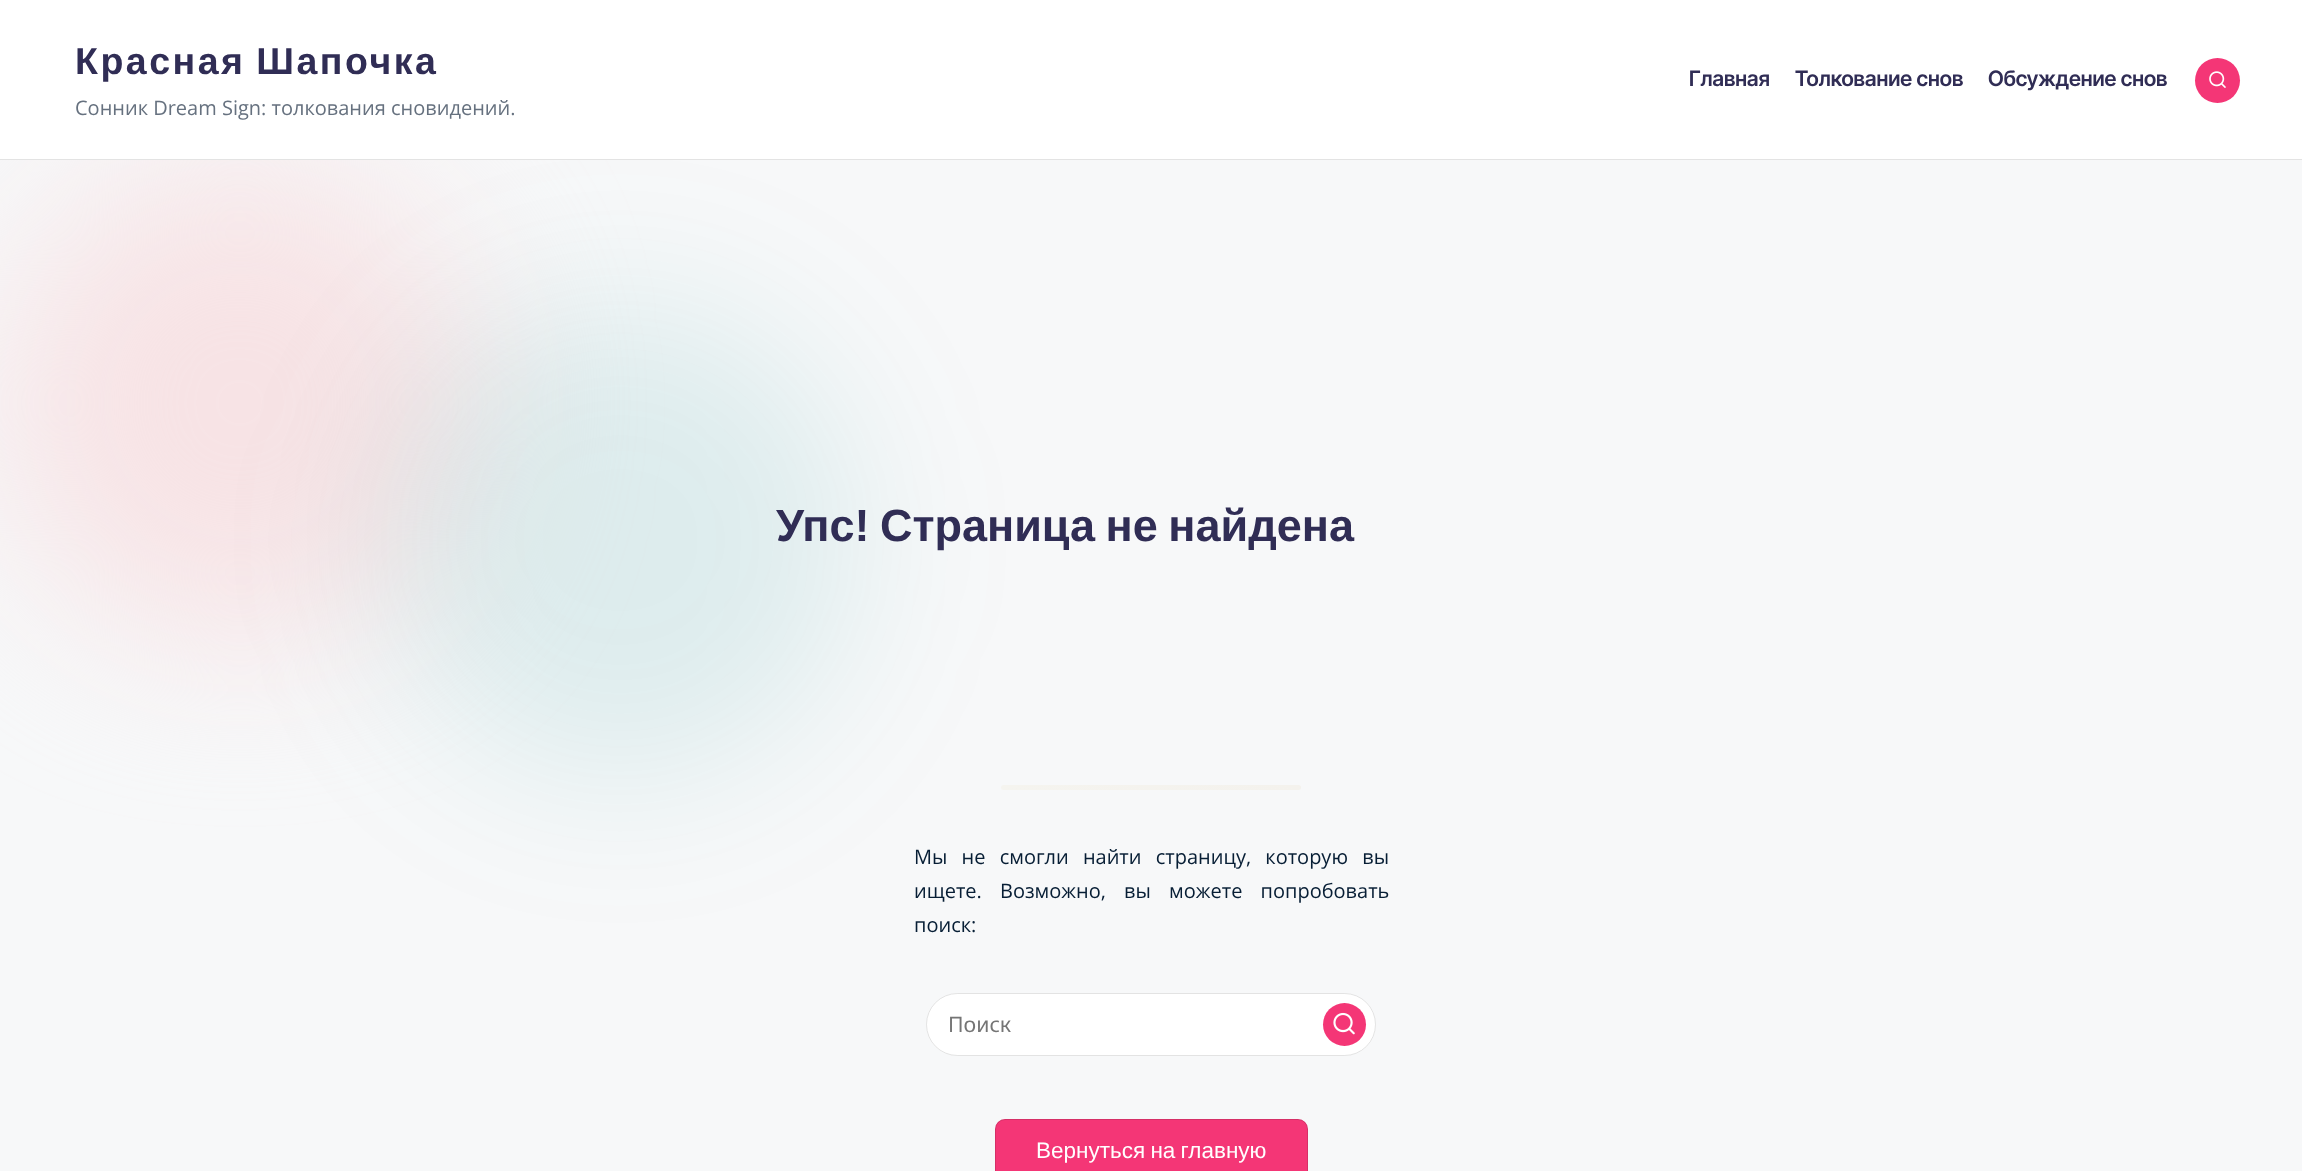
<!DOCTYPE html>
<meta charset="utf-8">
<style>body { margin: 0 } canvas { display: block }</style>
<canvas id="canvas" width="2302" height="1171"></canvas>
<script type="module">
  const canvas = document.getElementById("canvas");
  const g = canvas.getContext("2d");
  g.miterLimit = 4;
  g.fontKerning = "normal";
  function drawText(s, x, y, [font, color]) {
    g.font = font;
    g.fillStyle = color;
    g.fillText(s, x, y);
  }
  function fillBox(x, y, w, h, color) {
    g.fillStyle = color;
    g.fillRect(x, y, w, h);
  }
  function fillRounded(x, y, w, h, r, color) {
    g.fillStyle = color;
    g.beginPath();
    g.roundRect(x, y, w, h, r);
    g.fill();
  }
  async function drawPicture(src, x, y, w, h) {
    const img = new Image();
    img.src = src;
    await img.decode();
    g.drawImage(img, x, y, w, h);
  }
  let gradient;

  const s1 = ["bold 37.5px Liberation Sans", "#302D55"];
  const s2 = ["20px Open Sans", "#66717F"];
  const s3 = ["600 21.25px Inter Tight", "#302D55"];
  const s4 = ["bold 45px Liberation Sans", "#302D55"];
  const s5 = ["20px Open Sans", "#071E35"];
  const s6 = ["21.25px Noto Sans", "#757575"];
  const s7 = ["22.5px Liberation Sans", "#FFFFFF"];

  fillBox(0, 0, 2302, 1171, "#F7F8F9");
  g.fillStyle = "#F7E3E5";
  g.filter = "blur(80px)";
  g.beginPath();
  g.roundRect(0, 163, 480, 480, 240);
  g.fill();
  g.filter = "none";
  g.fillStyle = "rgba(4, 134, 139, 0.1)";
  g.filter = "blur(80px)";
  g.beginPath();
  g.roundRect(380, 300, 480, 480, 240);
  g.fill();
  g.filter = "none";
  fillBox(0, 0, 2302, 159, "#FFFFFF");
  fillBox(0, 159, 2302, 1, "#E3E3E3");
  g.letterSpacing = "2.5px";
  g.wordSpacing = "-2px";
  drawText("Красная Шапочка", 75, 74, s1);
  g.letterSpacing = "0px";
  g.wordSpacing = "0px";
  drawText("Сонник Dream Sign: толкования сновидений.", 75, 115, s2);
  drawText("Главная", 1689, 86, s3);
  drawText("Толкование снов", 1795, 86, s3);
  drawText("Обсуждение снов", 1988, 86, s3);
  g.fillStyle = "#F43676";
  g.beginPath();
  g.arc(2217.5, 80.5, 22.5, 0, Math.PI * 2);
  g.fill();
  await drawPicture("pic1.png", 2209, 71, 17, 17);
  g.wordSpacing = "-2px";
  drawText("Упс! Страница не найдена", 776, 541, s4);
  gradient = g.createLinearGradient(1001, 788, 1301, 788);
  gradient.addColorStop(0, "#F5F4EF");
  gradient.addColorStop(1, "#F4F2ED");
  g.fillStyle = gradient;
  g.beginPath();
  g.roundRect(1001, 785, 300, 5, 2.5);
  g.fill();
  g.wordSpacing = "9px";
  drawText("Мы не смогли найти страницу, которую вы", 914, 864, s5);
  g.wordSpacing = "13px";
  drawText("ищете. Возможно, вы можете попробовать", 914, 898, s5);
  g.wordSpacing = "0px";
  drawText("поиск:", 914, 932, s5);
  fillRounded(926, 993, 450, 63, 31.5, "#FFFFFF");
  g.beginPath();
  g.roundRect(926.5, 993.5, 449, 62, 31);
  g.strokeStyle = "rgba(185, 185, 185, 0.4)";
  g.stroke();
  drawText("Поиск", 948, 1032, s6);
  g.fillStyle = "#F43676";
  g.beginPath();
  g.arc(1344.5, 1024.5, 21.5, 0, Math.PI * 2);
  g.fill();
  await drawPicture("pic2.png", 1333, 1012, 22, 23);
  fillRounded(995, 1119, 313, 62, 10, "#F43676");
  g.beginPath();
  g.roundRect(995.5, 1119.5, 312, 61, 9.5);
  g.strokeStyle = "rgba(0, 0, 0, 0.12)";
  g.stroke();
  g.wordSpacing = "-1px";
  drawText("Вернуться на главную", 1036, 1158, s7);
</script>
